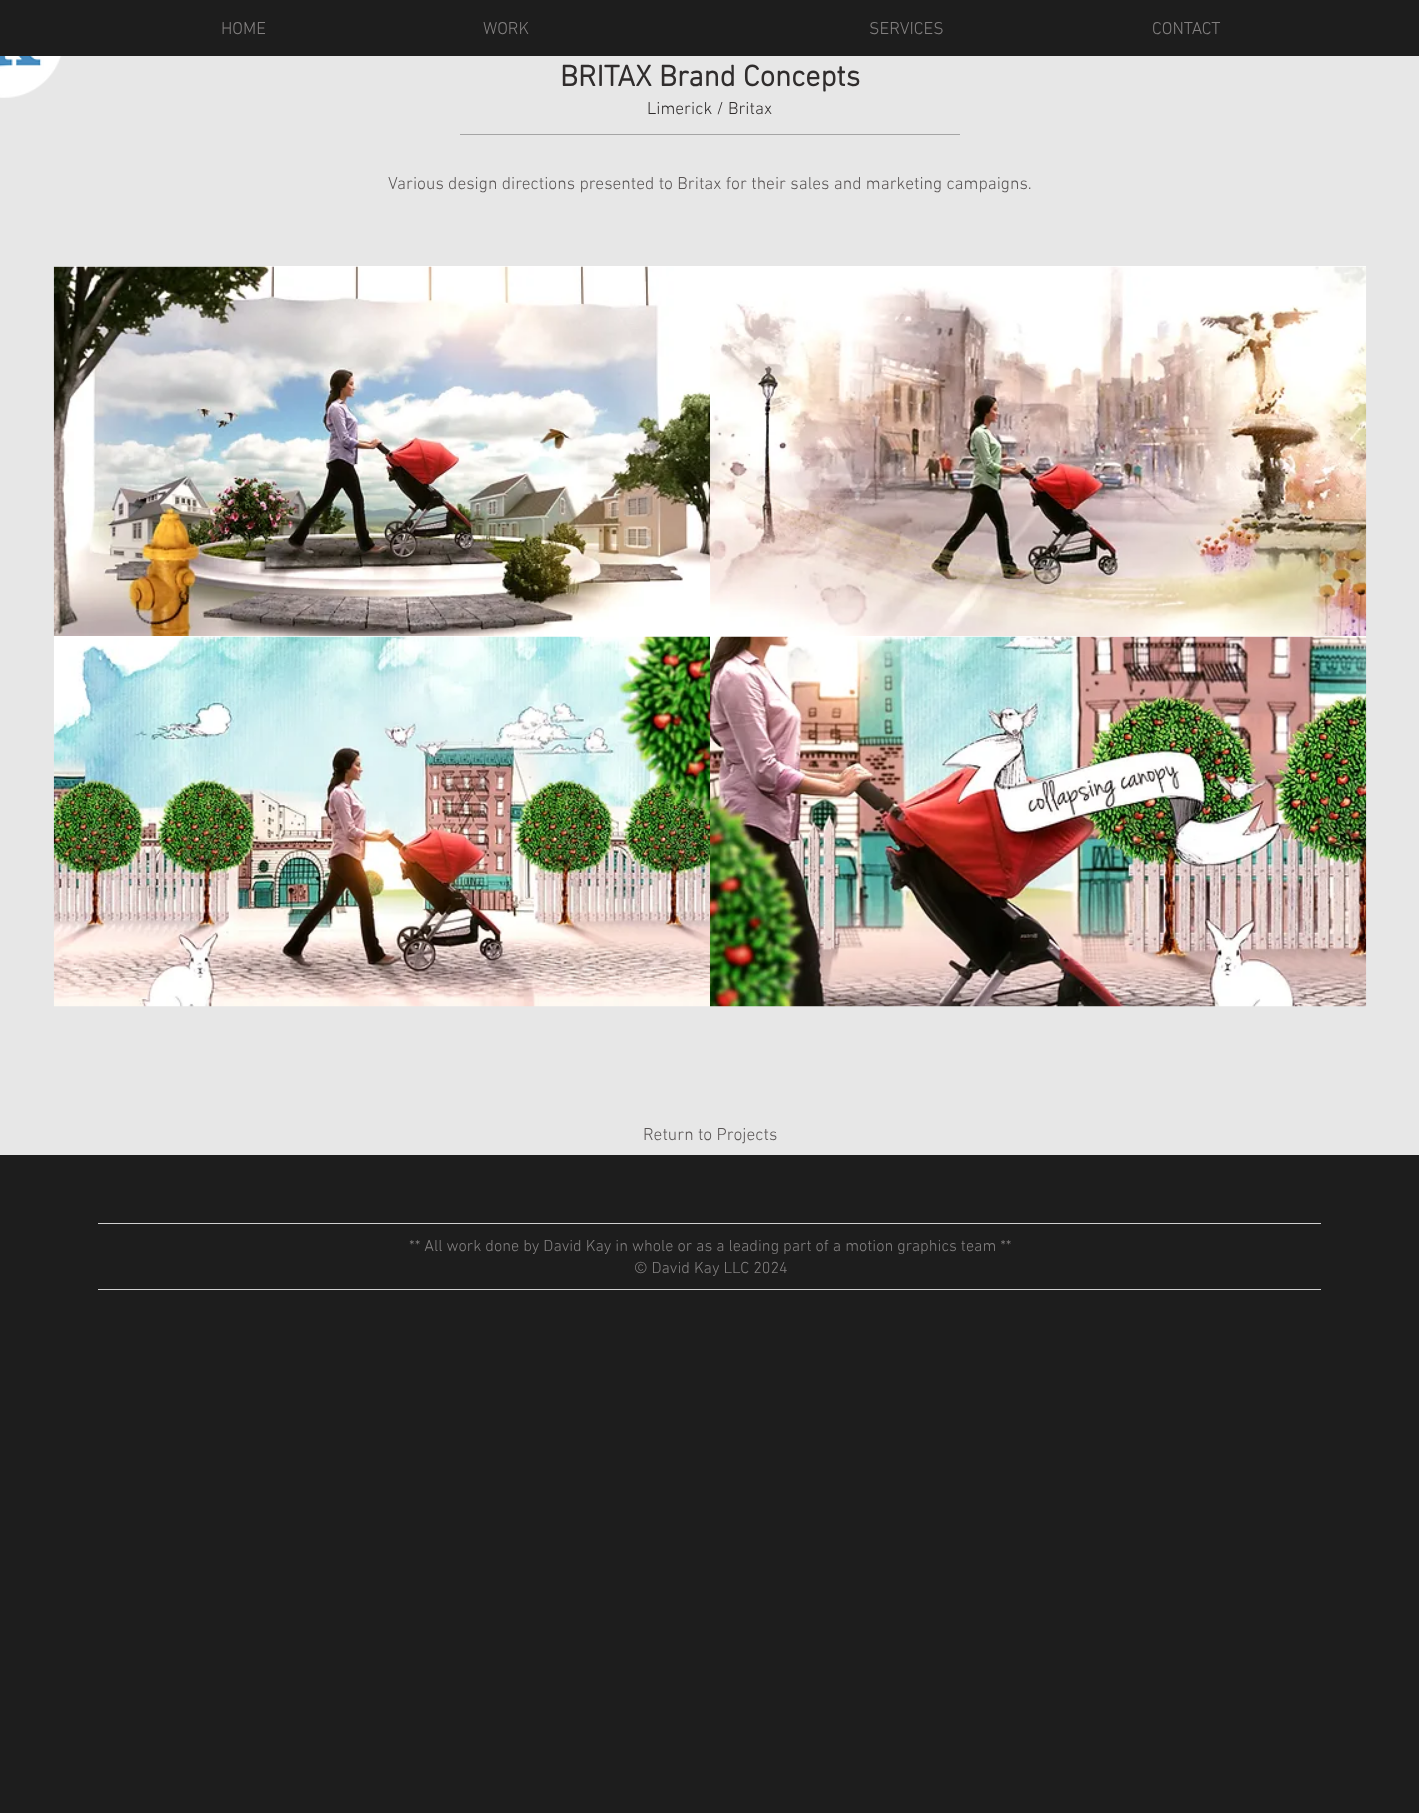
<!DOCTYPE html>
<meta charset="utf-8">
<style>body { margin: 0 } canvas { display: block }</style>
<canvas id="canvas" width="1419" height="1813"></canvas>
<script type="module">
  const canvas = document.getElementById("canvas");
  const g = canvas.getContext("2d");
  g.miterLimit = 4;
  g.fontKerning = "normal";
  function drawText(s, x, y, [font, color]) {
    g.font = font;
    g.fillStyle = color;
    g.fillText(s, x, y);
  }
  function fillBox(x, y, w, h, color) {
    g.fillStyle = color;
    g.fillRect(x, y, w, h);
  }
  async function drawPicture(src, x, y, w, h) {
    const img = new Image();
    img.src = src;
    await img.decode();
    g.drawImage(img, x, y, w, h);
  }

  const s1 = ["300 17.5px 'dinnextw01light'", "#838080"];
  const s2 = ["bold 30px 'dinnextw01light'", "#302D2D"];
  const s3 = ["300 17.5px 'dinnextw01light'", "#302D2D"];
  const s4 = ["300 17.5px 'dinnextw01light'", "#5A5656"];
  const s5 = ["300 16.25px 'dinnextw01light'", "#838080"];

  fillBox(0, 0, 1419, 1813, "#E7E7E7");
  fillBox(0, 0, 1419, 56, "#1D1D1D");
  drawText("HOME", 221, 34, s1);
  drawText("WORK", 483, 34, s1);
  drawText("SERVICES", 869, 34, s1);
  drawText("CONTACT", 1152, 34, s1);
  await drawPicture("pic1.png", 0, 56, 62, 42);
  drawText("BRITAX Brand Concepts", 560, 86, s2);
  drawText("Limerick / Britax", 647, 114, s3);
  fillBox(460, 134, 500, 1, "#A5A5A5");
  drawText("Various design directions presented to Britax for their sales and marketing campaigns.", 388, 189, s4);
  fillBox(54, 266, 1312, 1, "#FFFFFF");
  await drawPicture("pic2.png", 53, 266, 657, 370);
  await drawPicture("pic3.png", 710, 266, 657, 370);
  fillBox(54, 636, 1312, 1, "#FFFFFF");
  await drawPicture("pic4.png", 53, 636, 657, 371);
  await drawPicture("pic5.png", 710, 636, 657, 371);
  drawText("Return to Projects", 643, 1140, s4);
  fillBox(0, 1155, 1419, 658, "#1D1D1D");
  fillBox(98, 1223, 1223, 1, "#D1D1D1");
  drawText("** All work done by David Kay in whole or as a leading part of a motion graphics team **", 409, 1251, s5);
  drawText("© David Kay LLC 2024", 634, 1273, s5);
  fillBox(98, 1289, 1223, 1, "#D1D1D1");
</script>
